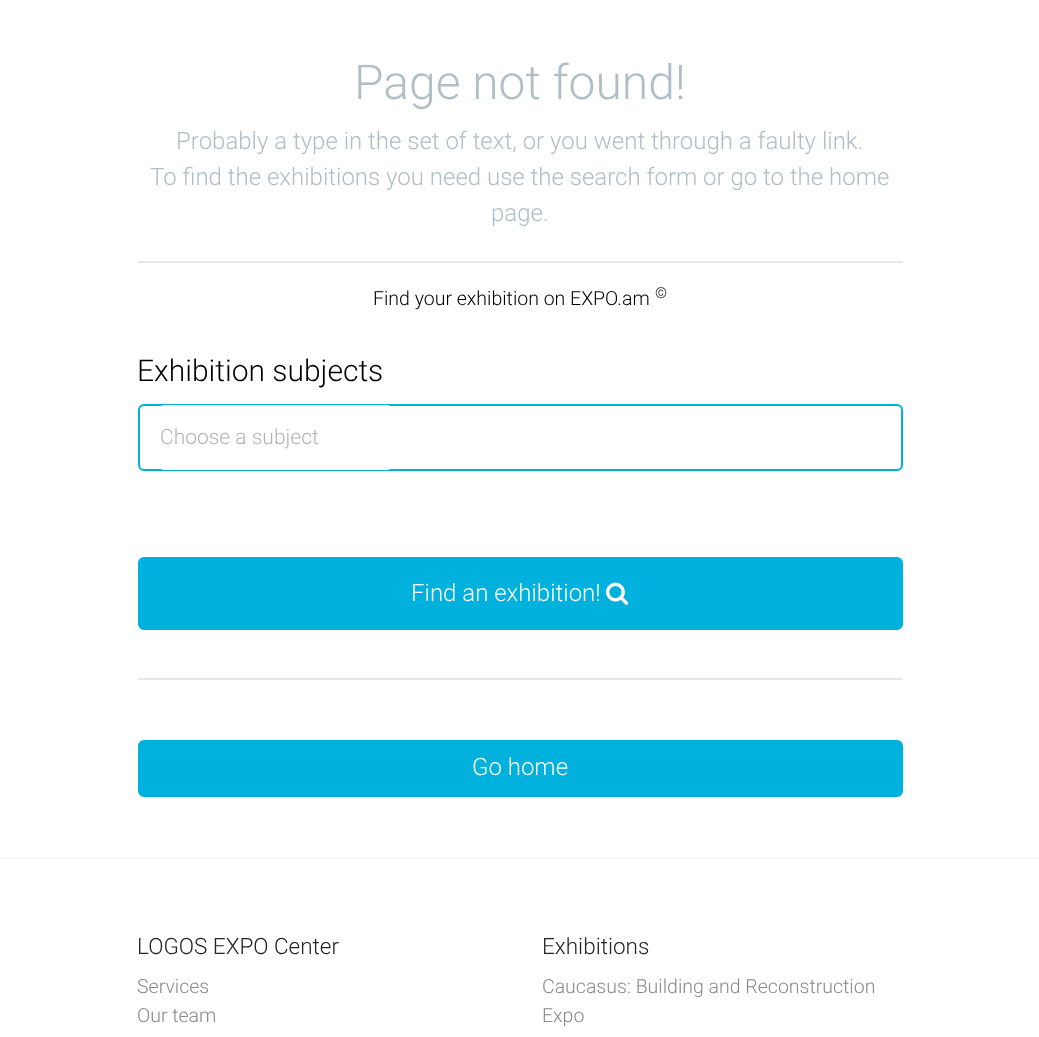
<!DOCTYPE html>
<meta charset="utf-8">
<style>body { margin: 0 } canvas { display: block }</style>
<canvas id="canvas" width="1039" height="1037"></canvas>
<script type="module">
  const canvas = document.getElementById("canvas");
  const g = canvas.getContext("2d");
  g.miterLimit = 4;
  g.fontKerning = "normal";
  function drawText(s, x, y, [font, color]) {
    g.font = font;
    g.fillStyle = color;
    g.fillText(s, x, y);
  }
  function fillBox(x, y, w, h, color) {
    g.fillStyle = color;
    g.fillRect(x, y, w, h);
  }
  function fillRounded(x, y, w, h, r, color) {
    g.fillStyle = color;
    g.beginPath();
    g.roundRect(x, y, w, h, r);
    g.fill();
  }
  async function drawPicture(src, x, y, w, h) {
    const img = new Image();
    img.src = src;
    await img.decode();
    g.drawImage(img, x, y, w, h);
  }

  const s1 = ["300 48px Roboto", "#B0BEC5"];
  const s2 = ["300 24px Roboto", "#B0BEC5"];
  const s3 = ["300 19.5px Roboto", "#000000"];
  const s4 = ["300 15px Roboto", "#000000"];
  const s5 = ["300 30px Roboto", "#000000"];
  const s6 = ["300 21px Roboto", "#B2B4B3"];
  const s7 = ["300 24px Roboto", "#FFFFFF"];
  const s8 = ["300 22.5px Roboto", "#212529"];
  const s9 = ["300 19.5px Roboto", "#8A8888"];

  fillBox(0, 0, 1039, 1037, "#FFFFFF");
  drawText("Page not found!", 354, 99, s1);
  drawText("Probably a type in the set of text, or you went through a faulty link.", 176, 149, s2);
  drawText("To find the exhibitions you need use the search form or go to the home", 150, 185, s2);
  drawText("page.", 491, 221, s2);
  fillBox(138, 261, 765, 2, "#E6E6E6");
  drawText("Find your exhibition on EXPO.am", 373, 305, s3);
  drawText("©", 655, 298, s4);
  drawText("Exhibition subjects", 137, 381, s5);
  g.beginPath();
  g.roundRect(139, 405, 763, 65, 5);
  g.strokeStyle = "#00B0DD";
  g.lineWidth = 2;
  g.stroke();
  fillRounded(158, 405, 235, 65, 6, "#FFFFFF");
  drawText("Choose a subject", 160, 444, s6);
  g.fillStyle = "#00B0DD";
  g.beginPath();
  g.roundRect(139, 558, 763, 71, 5);
  g.fill();
  g.stroke();
  drawText("Find an exhibition!", 411, 601, s7);
  await drawPicture("pic1.png", 606, 582, 23, 23);
  fillBox(138, 678, 765, 2, "#E6E6E6");
  g.fillStyle = "#00B0DD";
  g.beginPath();
  g.roundRect(139, 741, 763, 55, 5);
  g.fill();
  g.stroke();
  drawText("Go home", 472, 775, s7);
  fillBox(0, 857, 1039, 2, "#F5F5F5");
  drawText("LOGOS EXPO Center", 137, 954, s8);
  drawText("Services", 137, 993, s9);
  drawText("Our team", 137, 1022, s9);
  drawText("Exhibitions", 542, 954, s8);
  drawText("Caucasus: Building and Reconstruction", 542, 993, s9);
  drawText("Expo", 542, 1022, s9);
</script>
